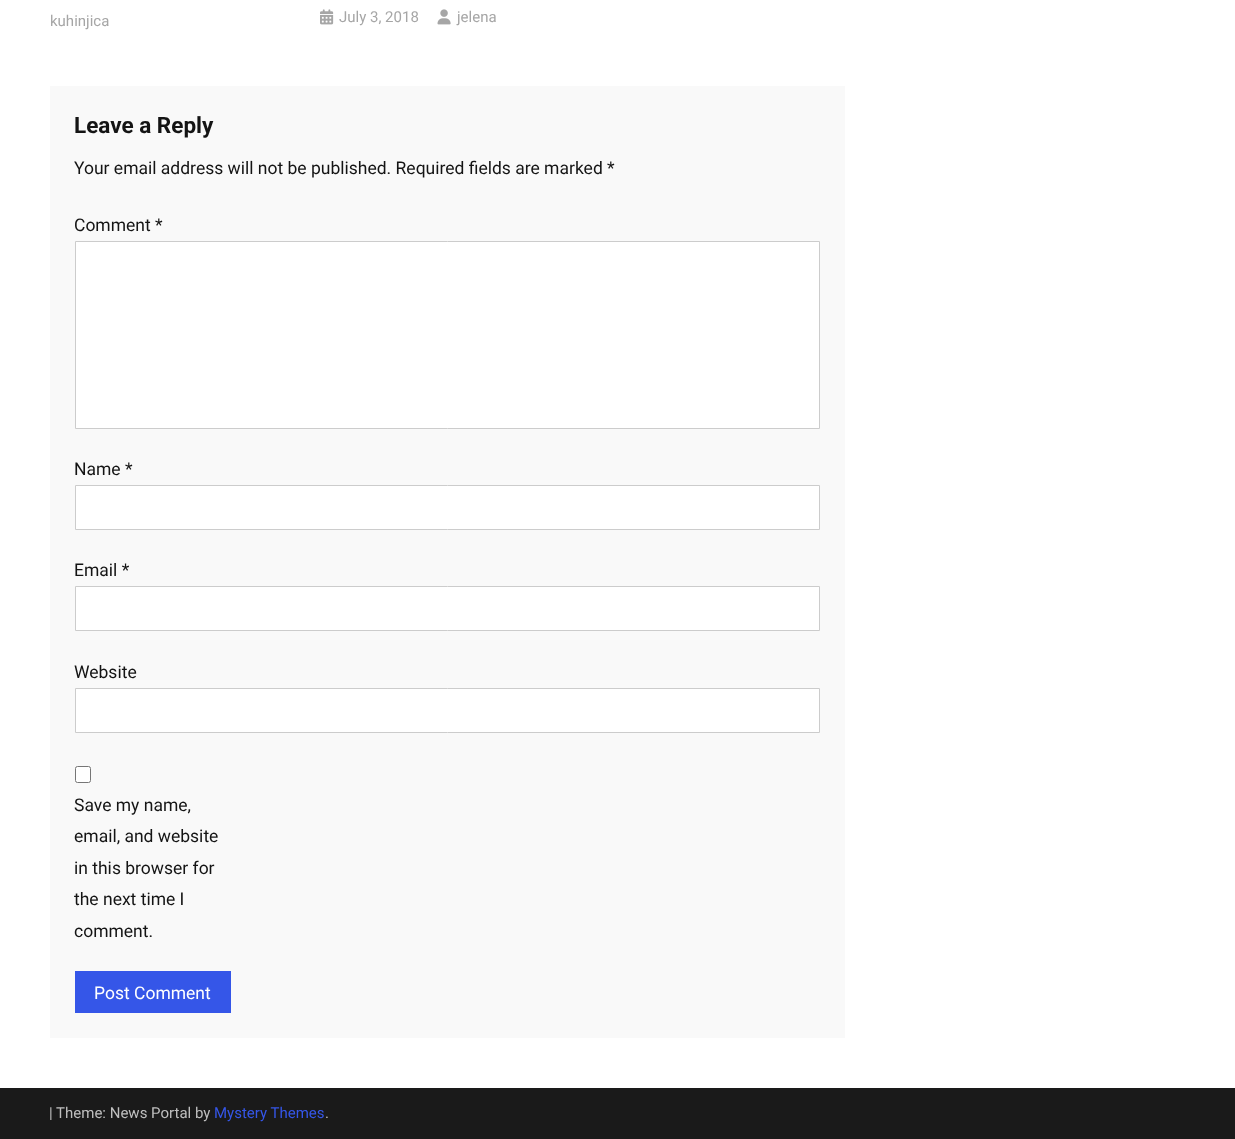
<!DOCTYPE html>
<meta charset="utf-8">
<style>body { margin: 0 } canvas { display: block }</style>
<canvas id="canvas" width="1235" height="1139"></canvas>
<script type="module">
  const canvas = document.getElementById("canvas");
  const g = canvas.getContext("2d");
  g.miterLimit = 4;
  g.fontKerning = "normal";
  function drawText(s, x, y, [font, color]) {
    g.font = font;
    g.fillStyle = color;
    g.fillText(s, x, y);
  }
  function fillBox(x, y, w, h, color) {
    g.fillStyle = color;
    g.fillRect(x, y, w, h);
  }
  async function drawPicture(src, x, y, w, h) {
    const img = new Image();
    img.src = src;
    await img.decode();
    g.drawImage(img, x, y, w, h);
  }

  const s1 = ["15px Roboto", "#A6A6A6"];
  const s2 = ["bold 22.5px Roboto", "#141414"];
  const s3 = ["17.5px Roboto", "#141414"];
  const s4 = ["17.5px Roboto", "#FFFFFF"];
  const s5 = ["15px Roboto", "#BFBFBF"];
  const s6 = ["15px Roboto", "#3556E8"];

  fillBox(0, 0, 1235, 1139, "#FFFFFF");
  drawText("kuhinjica", 50, 26, s1);
  await drawPicture("pic1.png", 320, 9, 14, 16);
  drawText("July 3, 2018", 339, 22, s1);
  await drawPicture("pic2.png", 437, 9, 14, 16);
  drawText("jelena", 457, 22, s1);
  fillBox(50, 86, 795, 952, "#F9F9F9");
  drawText("Leave a Reply", 74, 133, s2);
  drawText("Your email address will not be published. Required fields are marked *", 74, 174, s3);
  drawText("Comment *", 74, 231, s3);
  g.fillStyle = "#FFFFFF";
  g.beginPath();
  g.rect(75.5, 241.5, 744, 187);
  g.fill();
  g.strokeStyle = "#CCCCCC";
  g.stroke();
  drawText("Name *", 74, 475, s3);
  g.fillStyle = "#FFFFFF";
  g.beginPath();
  g.rect(75.5, 485.5, 744, 44);
  g.fill();
  g.stroke();
  drawText("Email *", 74, 576, s3);
  g.fillStyle = "#FFFFFF";
  g.beginPath();
  g.rect(75.5, 586.5, 744, 44);
  g.fill();
  g.stroke();
  drawText("Website", 74, 678, s3);
  g.fillStyle = "#FFFFFF";
  g.beginPath();
  g.rect(75.5, 688.5, 744, 44);
  g.fill();
  g.stroke();
  g.beginPath();
  g.roundRect(75.5, 766.5, 15, 16, 2);
  g.fill();
  g.strokeStyle = "#767676";
  g.stroke();
  drawText("Save my name,", 74, 811, s3);
  drawText("email, and website", 74, 842, s3);
  drawText("in this browser for", 74, 874, s3);
  drawText("the next time I", 74, 905, s3);
  drawText("comment.", 74, 937, s3);
  fillBox(75, 971, 156, 42, "#3556E8");
  drawText("Post Comment", 94, 999, s4);
  fillBox(0, 1088, 1235, 51, "#1A1A1A");
  drawText("| Theme: News Portal by", 49, 1118, s5);
  drawText("Mystery Themes", 214, 1118, s6);
  drawText(".", 325, 1118, s5);
</script>
